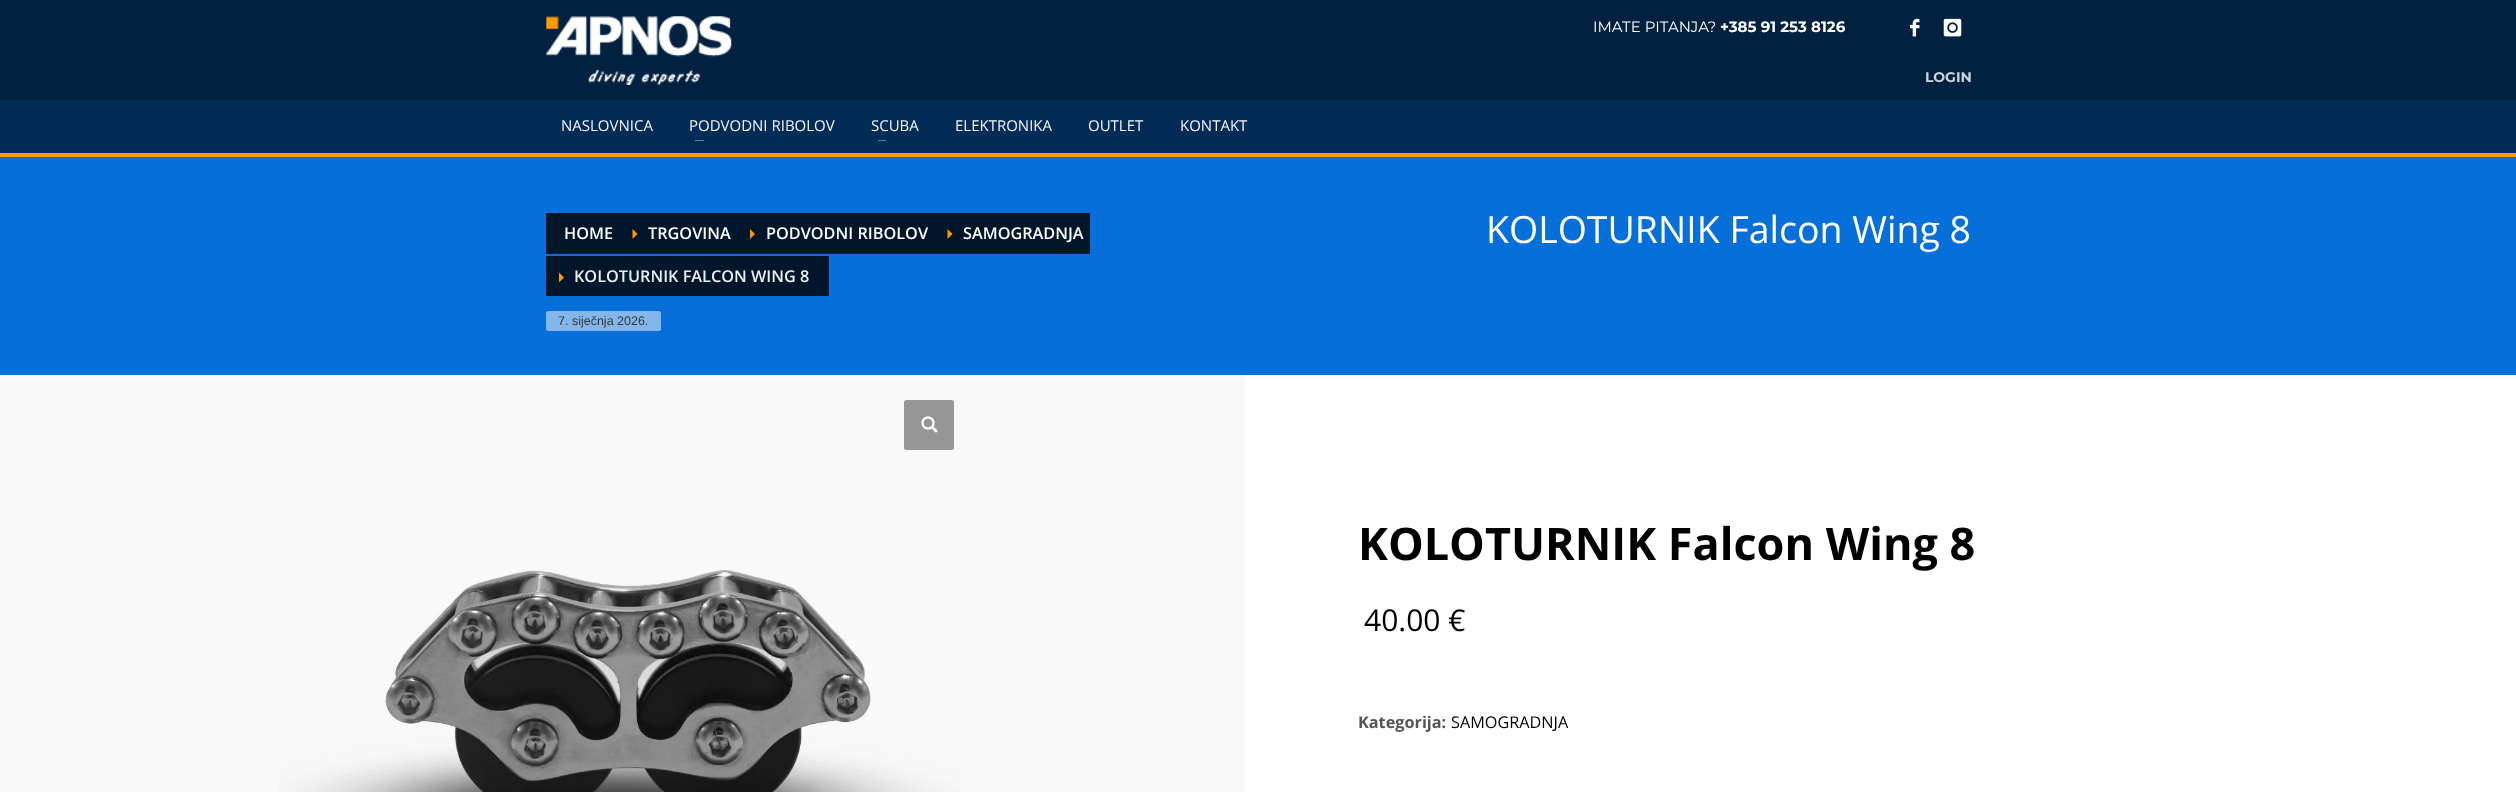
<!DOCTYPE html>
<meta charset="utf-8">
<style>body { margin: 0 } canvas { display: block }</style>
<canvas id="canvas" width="2516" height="792"></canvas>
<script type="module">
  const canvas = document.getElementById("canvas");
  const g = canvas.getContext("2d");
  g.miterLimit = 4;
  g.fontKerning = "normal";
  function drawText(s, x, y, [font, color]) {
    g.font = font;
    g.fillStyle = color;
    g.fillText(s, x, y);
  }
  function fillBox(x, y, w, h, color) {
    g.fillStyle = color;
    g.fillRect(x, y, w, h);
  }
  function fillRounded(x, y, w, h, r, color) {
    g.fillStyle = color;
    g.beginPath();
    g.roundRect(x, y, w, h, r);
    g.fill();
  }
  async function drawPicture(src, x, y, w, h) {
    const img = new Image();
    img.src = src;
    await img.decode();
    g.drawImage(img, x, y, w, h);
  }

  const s1 = ["15px Montserrat", "#FFFFFF"];
  const s2 = ["bold 15px Montserrat", "#FFFFFF"];
  const s3 = ["bold 14px Montserrat", "#CCD3D9"];
  const s4 = ["15px Open Sans", "#F5F5F5"];
  const s5 = ["600 16.25px Open Sans", "#FFFFFF"];
  const s6 = ["600 16.25px Open Sans", "#EEEEEE"];
  const s7 = ["12.5px Liberation Sans", "#383838"];
  const s8 = ["37.5px Open Sans", "#FFFFFF"];
  const s9 = ["bold 45px Open Sans", "#000000"];
  const s10 = ["30px Open Sans", "#000000"];
  const s11 = ["bold 16.25px Open Sans", "#535353"];
  const s12 = ["16.25px Open Sans", "#000000"];

  fillBox(0, 0, 2516, 792, "#066FD9");
  fillBox(0, 0, 2516, 100, "#022141");
  await drawPicture("pic1.png", 546, 16, 186, 69);
  drawText("IMATE PITANJA?", 1593, 32, s1);
  drawText("+385 91 253 8126", 1720, 32, s2);
  await drawPicture("pic2.png", 1910, 18, 10, 19);
  await drawPicture("pic3.png", 1943, 18, 19, 19);
  drawText("LOGIN", 1925, 82, s3);
  fillBox(0, 100, 2516, 53, "#022C57");
  fillBox(0, 153, 2516, 4, "#FF9900");
  drawText("NASLOVNICA", 561, 131, s4);
  drawText("PODVODNI RIBOLOV", 689, 131, s4);
  fillBox(695, 140, 9, 1, "#67809A");
  drawText("SCUBA", 871, 131, s4);
  fillBox(878, 140, 8, 1, "#67809A");
  drawText("ELEKTRONIKA", 955, 131, s4);
  drawText("OUTLET", 1088, 131, s4);
  drawText("KONTAKT", 1180, 131, s4);
  fillBox(546, 213, 544, 41, "#01162B");
  drawText("HOME", 564, 239, s5);
  g.fillStyle = "#FF9900";
  g.beginPath();
  g.moveTo(632.5, 239);
  g.lineTo(632.5, 229);
  g.lineTo(637.5, 234);
  g.closePath();
  g.fill();
  drawText("TRGOVINA", 648, 239, s5);
  g.fillStyle = "#FF9900";
  g.beginPath();
  g.moveTo(750, 239);
  g.lineTo(750, 229);
  g.lineTo(755, 234);
  g.closePath();
  g.fill();
  drawText("PODVODNI RIBOLOV", 766, 239, s5);
  g.fillStyle = "#FF9900";
  g.beginPath();
  g.moveTo(947.5, 239);
  g.lineTo(947.5, 229);
  g.lineTo(952.5, 234);
  g.closePath();
  g.fill();
  drawText("SAMOGRADNJA", 963, 239, s5);
  fillBox(546, 256, 283, 40, "#01162B");
  g.fillStyle = "#FF9900";
  g.beginPath();
  g.moveTo(559, 282.5);
  g.lineTo(559, 272.5);
  g.lineTo(564, 277.5);
  g.closePath();
  g.fill();
  drawText("KOLOTURNIK FALCON WING 8", 574, 282, s6);
  fillRounded(546, 311, 115, 20, 2.5, "#83B7EC");
  drawText("7. siječnja 2026.", 558, 325, s7);
  drawText("KOLOTURNIK Falcon Wing 8", 1486, 243, s8);
  fillBox(1246, 375, 1270, 417, "#FFFFFF");
  fillBox(0, 375, 1246, 417, "#F9F9F9");
  fillRounded(904, 400, 50, 50, 2.5, "#969696");
  await drawPicture("pic4.png", 921, 416, 17, 17);
  await drawPicture("pic5.png", 279, 569, 682, 223);
  drawText("KOLOTURNIK Falcon Wing 8", 1358, 560, s9);
  drawText("40.00 €", 1364, 631, s10);
  drawText("Kategorija:", 1358, 728, s11);
  drawText("SAMOGRADNJA", 1451, 728, s12);
</script>
